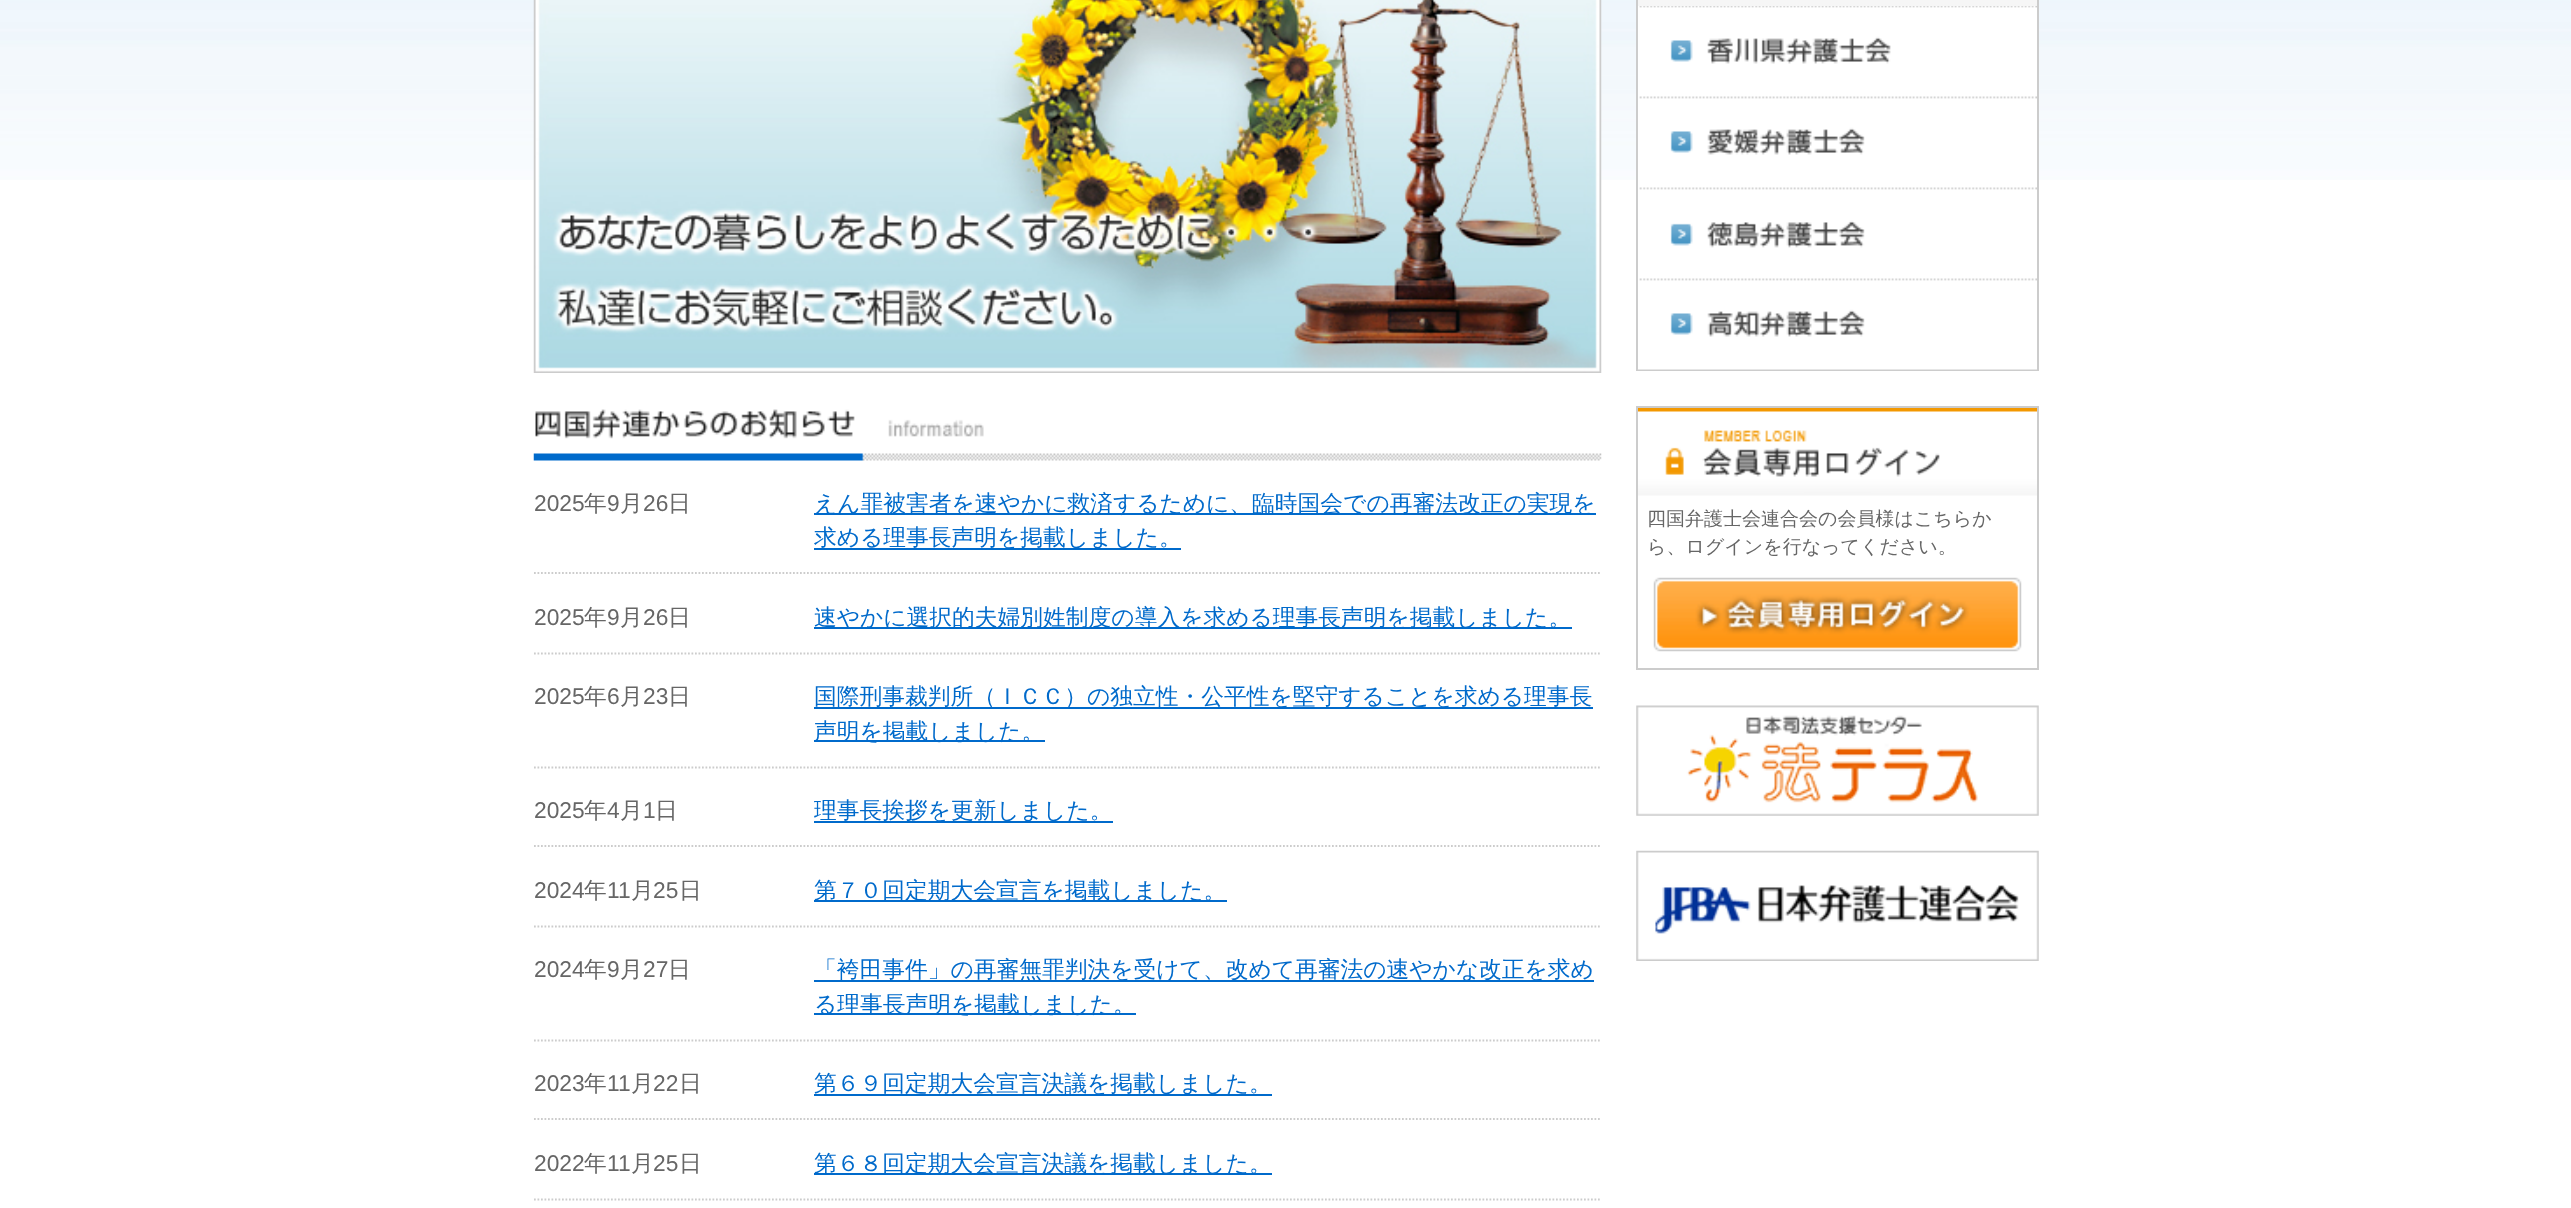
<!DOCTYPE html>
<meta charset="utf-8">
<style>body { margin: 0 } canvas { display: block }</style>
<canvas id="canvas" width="2571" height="1208"></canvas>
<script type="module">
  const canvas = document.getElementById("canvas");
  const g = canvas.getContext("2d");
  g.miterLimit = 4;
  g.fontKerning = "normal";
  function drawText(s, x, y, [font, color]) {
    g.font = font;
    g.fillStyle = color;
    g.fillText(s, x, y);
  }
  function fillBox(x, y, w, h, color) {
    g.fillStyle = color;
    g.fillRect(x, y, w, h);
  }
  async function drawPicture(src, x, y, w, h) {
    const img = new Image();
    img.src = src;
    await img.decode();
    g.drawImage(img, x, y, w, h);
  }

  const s1 = ["22.75px Liberation Sans", "#666666"];
  const s2 = ["500 22.75px WenQuanYi Zen Hei", "#666666"];
  const s3 = ["500 22.75px WenQuanYi Zen Hei", "#006ACB"];
  const s4 = ["500 19px WenQuanYi Zen Hei", "#666666"];

  fillBox(0, 0, 2571, 1208, "#FFFFFF");
  await drawPicture("pic1.png", 0, 0, 2571, 180);
  await drawPicture("pic2.png", 533, 0, 1069, 373);
  await drawPicture("pic3.png", 533, 409, 1069, 52);
  drawText("2025", 534, 511, s1);
  drawText("年", 584, 511, s2);
  drawText("9", 607, 511, s1);
  drawText("月", 620, 511, s2);
  drawText("26", 643, 511, s1);
  drawText("日", 668, 511, s2);
  g.beginPath();
  g.moveTo(534, 573);
  g.lineTo(1601, 573);
  g.strokeStyle = "#CCCCCC";
  g.lineWidth = 1.8;
  g.setLineDash([1.75, 1.75]);
  g.stroke();
  fillBox(814, 513, 782, 2, "#006ACB");
  drawText("えん罪被害者を速やかに救済するために、臨時国会での再審法改正の実現を", 814, 511, s3);
  fillBox(814, 548, 367, 2, "#006ACB");
  drawText("求める理事長声明を掲載しました。", 814, 545, s3);
  drawText("2025", 534, 625, s1);
  drawText("年", 584, 625, s2);
  drawText("9", 607, 625, s1);
  drawText("月", 620, 625, s2);
  drawText("26", 643, 625, s1);
  drawText("日", 668, 625, s2);
  g.beginPath();
  g.moveTo(534, 653.5);
  g.lineTo(1601, 653.5);
  g.stroke();
  fillBox(814, 627, 758, 2, "#006ACB");
  drawText("速やかに選択的夫婦別姓制度の導入を求める理事長声明を掲載しました。", 814, 625, s3);
  drawText("2025", 534, 704, s1);
  drawText("年", 584, 704, s2);
  drawText("6", 607, 704, s1);
  drawText("月", 620, 704, s2);
  drawText("23", 643, 704, s1);
  drawText("日", 668, 704, s2);
  g.beginPath();
  g.moveTo(534, 767.5);
  g.lineTo(1601, 767.5);
  g.stroke();
  fillBox(814, 707, 779, 2, "#006ACB");
  drawText("国際刑事裁判所（ＩＣＣ）の独立性・公平性を堅守することを求める理事長", 814, 704, s3);
  fillBox(814, 740, 231, 2, "#006ACB");
  drawText("声明を掲載しました。", 814, 739, s3);
  drawText("2025", 534, 818, s1);
  drawText("年", 584, 818, s2);
  drawText("4", 607, 818, s1);
  drawText("月", 620, 818, s2);
  drawText("1", 643, 818, s1);
  drawText("日", 655, 818, s2);
  g.beginPath();
  g.moveTo(534, 846);
  g.lineTo(1601, 846);
  g.stroke();
  fillBox(814, 821, 299, 2, "#006ACB");
  drawText("理事長挨拶を更新しました。", 814, 818, s3);
  drawText("2024", 534, 898, s1);
  drawText("年", 584, 898, s2);
  drawText("11", 607, 898, s1);
  drawText("月", 631, 898, s2);
  drawText("25", 653, 898, s1);
  drawText("日", 679, 898, s2);
  g.beginPath();
  g.moveTo(534, 926.5);
  g.lineTo(1601, 926.5);
  g.stroke();
  fillBox(814, 900, 413, 2, "#006ACB");
  drawText("第７０回定期大会宣言を掲載しました。", 814, 898, s3);
  drawText("2024", 534, 977, s1);
  drawText("年", 584, 977, s2);
  drawText("9", 607, 977, s1);
  drawText("月", 620, 977, s2);
  drawText("27", 643, 977, s1);
  drawText("日", 668, 977, s2);
  g.beginPath();
  g.moveTo(534, 1040.5);
  g.lineTo(1601, 1040.5);
  g.stroke();
  fillBox(814, 980, 780, 2, "#006ACB");
  drawText("「袴田事件」の再審無罪判決を受けて、改めて再審法の速やかな改正を求め", 814, 977, s3);
  fillBox(814, 1013, 322, 2, "#006ACB");
  drawText("る理事長声明を掲載しました。", 814, 1012, s3);
  drawText("2023", 534, 1091, s1);
  drawText("年", 584, 1091, s2);
  drawText("11", 607, 1091, s1);
  drawText("月", 631, 1091, s2);
  drawText("22", 653, 1091, s1);
  drawText("日", 679, 1091, s2);
  g.beginPath();
  g.moveTo(534, 1119);
  g.lineTo(1601, 1119);
  g.stroke();
  fillBox(814, 1094, 458, 2, "#006ACB");
  drawText("第６９回定期大会宣言決議を掲載しました。", 814, 1091, s3);
  drawText("2022", 534, 1171, s1);
  drawText("年", 584, 1171, s2);
  drawText("11", 607, 1171, s1);
  drawText("月", 631, 1171, s2);
  drawText("25", 653, 1171, s1);
  drawText("日", 679, 1171, s2);
  g.beginPath();
  g.moveTo(534, 1199.5);
  g.lineTo(1601, 1199.5);
  g.stroke();
  fillBox(814, 1173, 458, 2, "#006ACB");
  drawText("第６８回定期大会宣言決議を掲載しました。", 814, 1171, s3);
  fillBox(1638, 6, 399, 174, "#FFFFFF");
  g.lineWidth = 2;
  g.setLineDash([]);
  g.strokeRect(1637, -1, 401, 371);
  fillBox(1638, 0, 399, 6, "#F6F6F6");
  await drawPicture("pic4.png", 1639, 6, 398, 58);
  await drawPicture("pic5.png", 1639, 96, 398, 59);
  await drawPicture("pic6.png", 1639, 187, 398, 61);
  await drawPicture("pic7.png", 1638, 278, 399, 92);
  g.strokeRect(1637, 407, 401, 262);
  await drawPicture("pic8.png", 1638, 408, 399, 88);
  drawText("四国弁護士会連合会の会員様はこちらか", 1647, 525, s4);
  drawText("ら、ログインを行なってください。", 1647, 553, s4);
  await drawPicture("pic9.png", 1653, 577, 369, 75);
  await drawPicture("pic10.png", 1636, 705, 403, 111);
  await drawPicture("pic11.png", 1636, 850, 403, 111);
</script>
